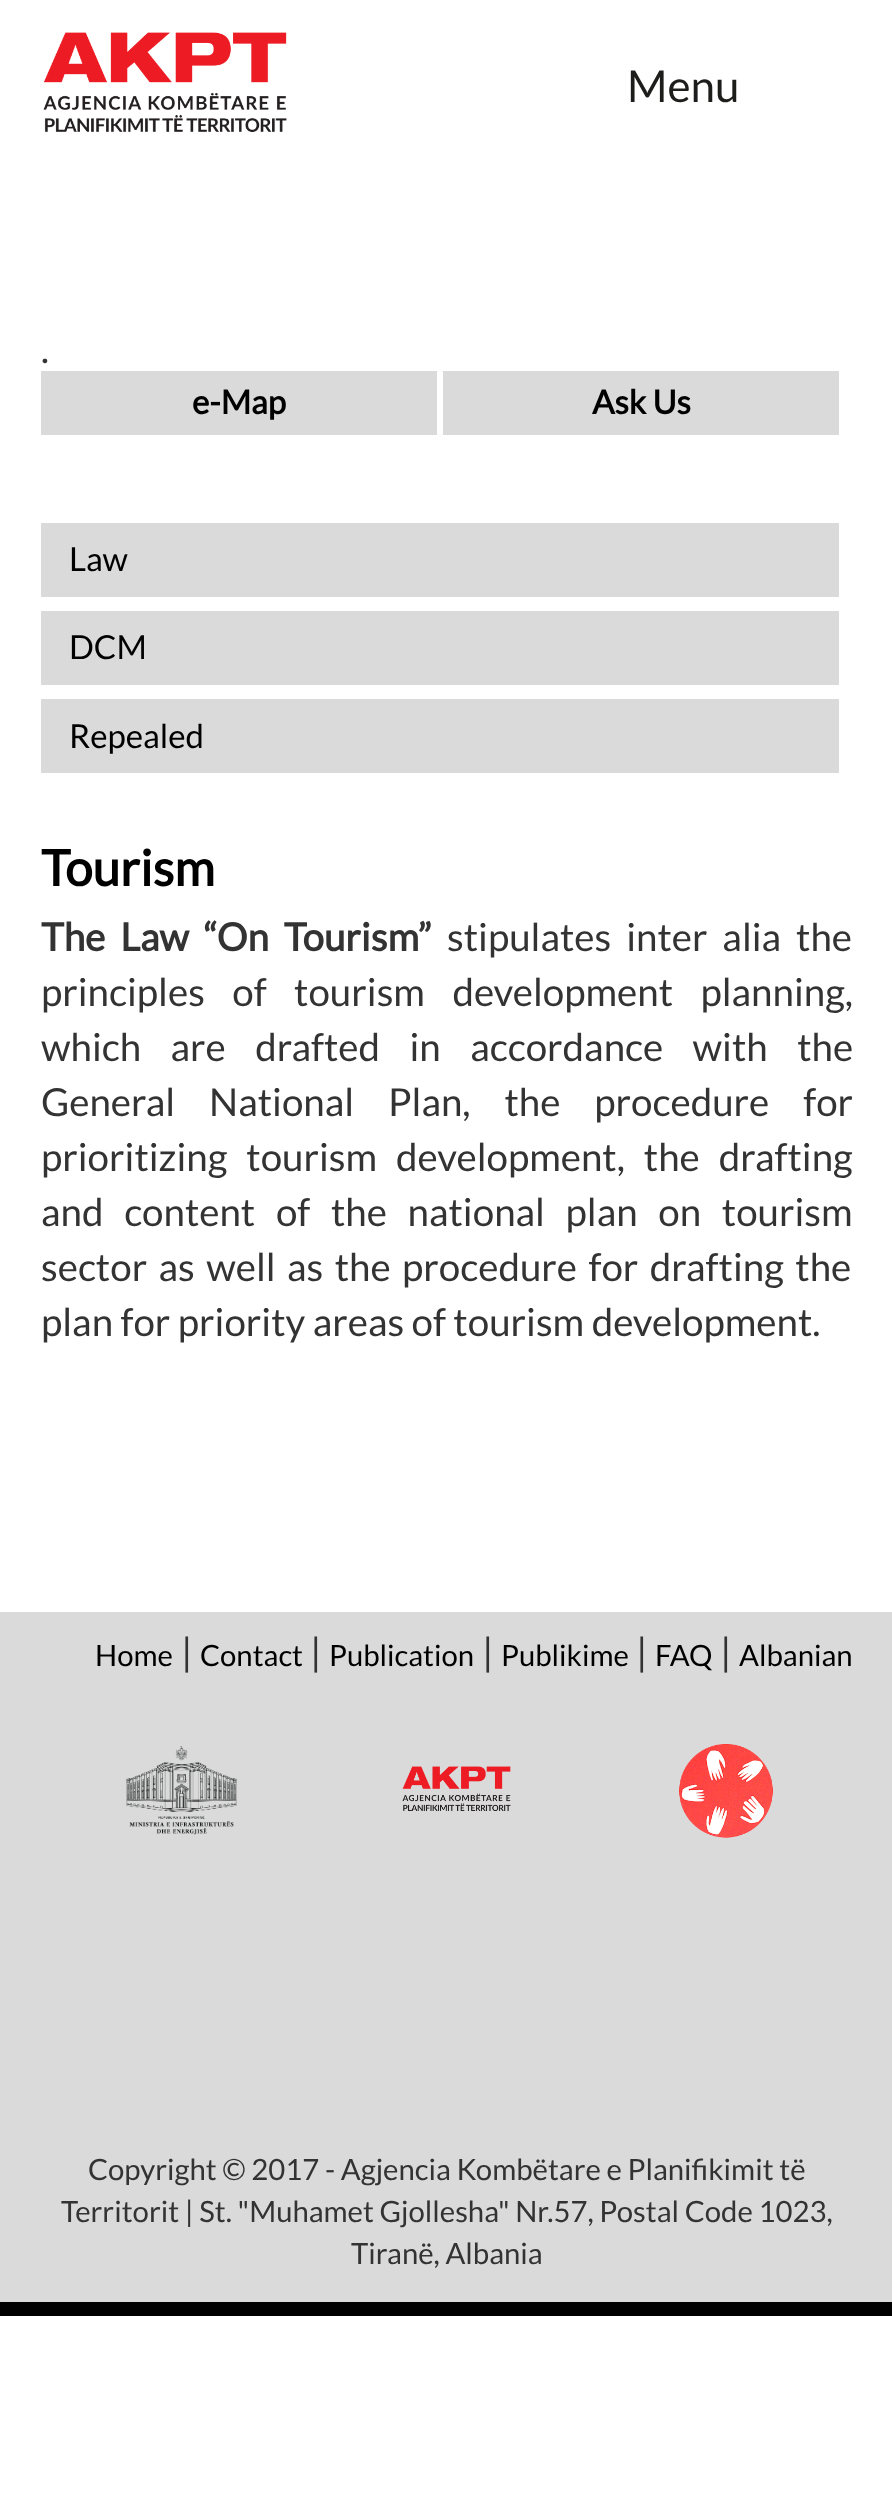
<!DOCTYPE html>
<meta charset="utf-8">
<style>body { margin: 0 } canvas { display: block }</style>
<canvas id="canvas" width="892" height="2501"></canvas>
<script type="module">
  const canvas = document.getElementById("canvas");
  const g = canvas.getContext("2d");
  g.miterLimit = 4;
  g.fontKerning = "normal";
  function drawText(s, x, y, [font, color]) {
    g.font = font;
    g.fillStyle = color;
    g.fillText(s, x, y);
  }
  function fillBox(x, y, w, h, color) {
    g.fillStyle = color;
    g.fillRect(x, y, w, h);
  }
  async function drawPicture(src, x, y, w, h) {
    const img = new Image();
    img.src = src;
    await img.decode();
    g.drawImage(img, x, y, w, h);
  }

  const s1 = ["44px Lato", "#1D1D1B"];
  const s2 = ["37px Lato", "#333333"];
  const s3 = ["bold 33px Lato", "#000000"];
  const s4 = ["33px Lato", "#000000"];
  const s5 = ["bold 49.5px Lato", "#000000"];
  const s6 = ["bold 38.5px Lato", "#333333"];
  const s7 = ["38.5px Lato", "#333333"];
  const s8 = ["29.3px Lato", "#000000"];
  const s9 = ["29.3px Lato", "#333333"];

  fillBox(0, 0, 892, 2501, "#FFFFFF");
  await drawPicture("pic1.png", 43, 32, 244, 100);
  drawText("Menu", 627, 102, s1);
  drawText(".", 41, 363, s2);
  fillBox(41, 371, 396, 64, "#DADADA");
  drawText("e-Map", 192, 414, s3);
  fillBox(443, 371, 396, 64, "#DADADA");
  drawText("Ask Us", 592, 414, s3);
  fillBox(41, 523, 798, 74, "#DADADA");
  drawText("Law", 69, 571, s4);
  fillBox(41, 611, 798, 74, "#DADADA");
  drawText("DCM", 69, 659, s4);
  fillBox(41, 699, 798, 74, "#DADADA");
  drawText("Repealed", 69, 748, s4);
  drawText("Tourism", 41, 886, s5);
  g.wordSpacing = "7.5px";
  drawText("The Law “On Tourism”", 41, 951, s6);
  drawText("stipulates inter alia the", 447, 951, s7);
  g.wordSpacing = "20px";
  drawText("principles of tourism development planning,", 41, 1006, s7);
  g.wordSpacing = "22px";
  drawText("which are drafted in accordance with the", 41, 1061, s7);
  g.wordSpacing = "26.5px";
  drawText("General National Plan, the procedure for", 41, 1116, s7);
  g.wordSpacing = "11.5px";
  drawText("prioritizing tourism development, the drafting", 41, 1171, s7);
  g.wordSpacing = "13.25px";
  drawText("and content of the national plan on tourism", 41, 1226, s7);
  g.wordSpacing = "4px";
  drawText("sector as well as the procedure for drafting the", 41, 1281, s7);
  g.wordSpacing = "0px";
  drawText("plan for priority areas of tourism development.", 41, 1336, s7);
  fillBox(0, 1612, 892, 690, "#DADADA");
  drawText("Home", 95, 1666, s8);
  drawText("|", 181, 1666, s7);
  drawText("Contact", 200, 1666, s8);
  drawText("|", 310, 1666, s7);
  drawText("Publication", 329, 1666, s8);
  drawText("|", 482, 1666, s7);
  drawText("Publikime", 501, 1666, s8);
  drawText("|", 636, 1666, s7);
  drawText("FAQ", 655, 1666, s8);
  drawText("|", 720, 1666, s7);
  drawText("Albanian", 739, 1666, s8);
  await drawPicture("pic2.png", 126, 1746, 111, 89);
  await drawPicture("pic3.png", 402, 1766, 109, 45);
  await drawPicture("pic4.png", 679, 1744, 94, 94);
  drawText("Copyright © 2017 - Agjencia Kombëtare e Planifikimit të", 88, 2180, s9);
  drawText("Territorit | St. \"Muhamet Gjollesha\" Nr.57, Postal Code 1023,", 61, 2222, s9);
  drawText("Tiranë, Albania", 351, 2264, s9);
  fillBox(0, 2302, 892, 14, "#000000");
</script>
